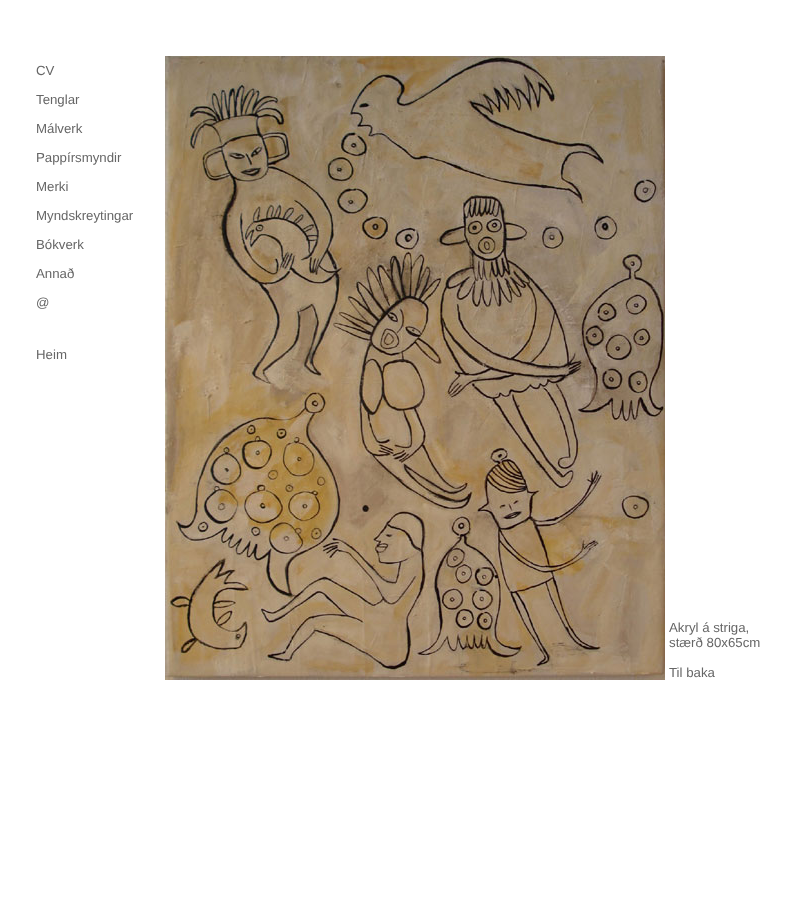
<!DOCTYPE html>
<meta charset="utf-8">
<style>body { margin: 0 } canvas { display: block }</style>
<canvas id="canvas" width="785" height="913"></canvas>
<script type="module">
  const canvas = document.getElementById("canvas");
  const g = canvas.getContext("2d");
  g.miterLimit = 4;
  g.fontKerning = "normal";
  function drawText(s, x, y, [font, color]) {
    g.font = font;
    g.fillStyle = color;
    g.fillText(s, x, y);
  }
  function fillBox(x, y, w, h, color) {
    g.fillStyle = color;
    g.fillRect(x, y, w, h);
  }
  async function drawPicture(src, x, y, w, h) {
    const img = new Image();
    img.src = src;
    await img.decode();
    g.drawImage(img, x, y, w, h);
  }

  const s1 = ["13.25px Liberation Sans", "#666666"];

  fillBox(0, 0, 785, 913, "#FFFFFF");
  drawText("CV", 36, 75, s1);
  drawText("Tenglar", 36, 104, s1);
  drawText("Málverk", 36, 133, s1);
  drawText("Pappírsmyndir", 36, 162, s1);
  drawText("Merki", 36, 191, s1);
  drawText("Myndskreytingar", 36, 220, s1);
  drawText("Bókverk", 36, 249, s1);
  drawText("Annað", 36, 278, s1);
  drawText("@", 36, 307, s1);
  drawText("Heim", 36, 359, s1);
  await drawPicture("pic1.png", 165, 56, 500, 624);
  drawText("Akryl á striga,", 669, 632, s1);
  drawText("stærð 80x65cm", 669, 647, s1);
  drawText("Til baka", 669, 677, s1);
</script>
